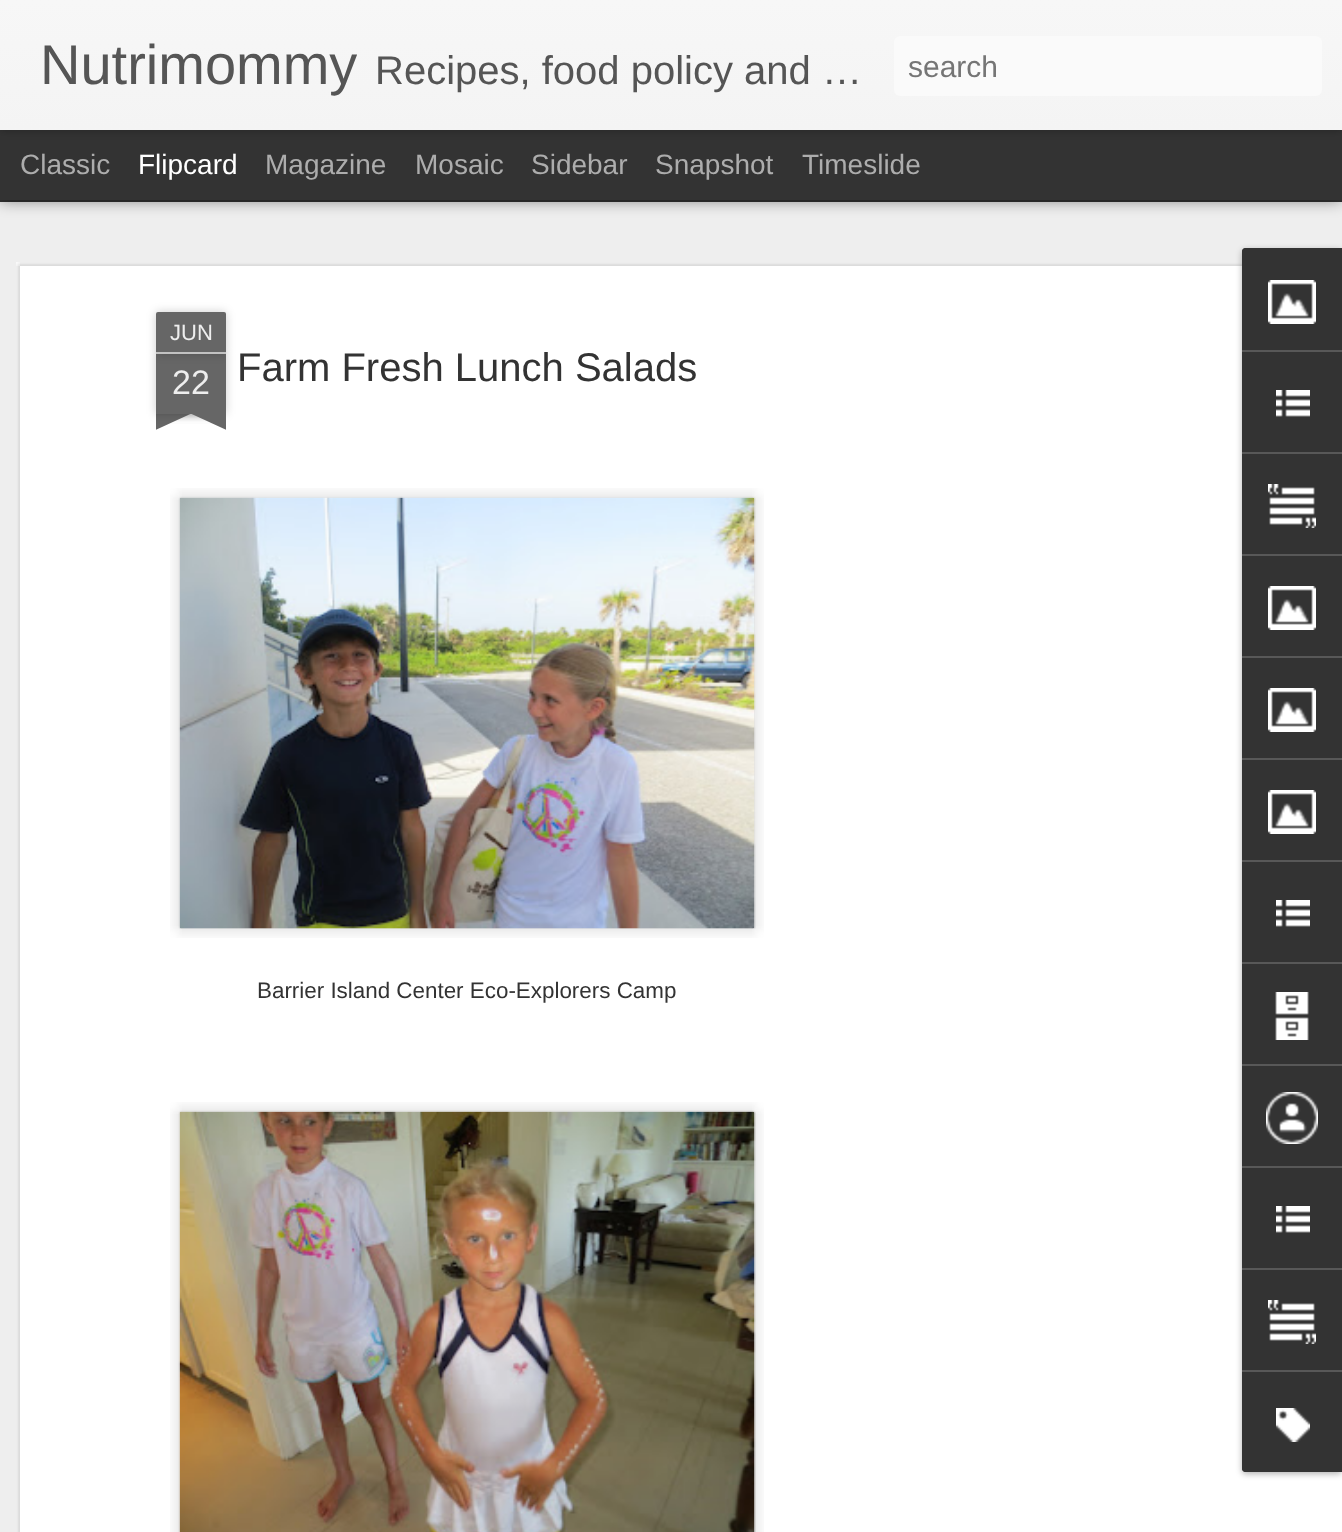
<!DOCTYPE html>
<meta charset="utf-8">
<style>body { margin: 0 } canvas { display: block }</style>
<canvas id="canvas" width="1342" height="1532"></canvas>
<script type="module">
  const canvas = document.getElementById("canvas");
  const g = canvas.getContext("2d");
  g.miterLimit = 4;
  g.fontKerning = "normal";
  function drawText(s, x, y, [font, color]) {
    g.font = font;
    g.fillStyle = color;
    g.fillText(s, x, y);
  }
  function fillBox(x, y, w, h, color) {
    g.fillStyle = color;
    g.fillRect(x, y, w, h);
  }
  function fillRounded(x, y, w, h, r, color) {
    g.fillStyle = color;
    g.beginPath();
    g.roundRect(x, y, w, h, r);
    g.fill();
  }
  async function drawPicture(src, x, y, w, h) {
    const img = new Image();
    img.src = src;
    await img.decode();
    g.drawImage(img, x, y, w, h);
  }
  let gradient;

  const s1 = ["56px Liberation Sans", "#555555"];
  const s2 = ["40px Liberation Sans", "#555555"];
  const s3 = ["30px Liberation Sans", "#757575"];
  const s4 = ["28px Liberation Sans", "#ADADAD"];
  const s5 = ["28px Liberation Sans", "#FFFFFF"];
  const s6 = ["22px Liberation Sans", "#EEEEEE"];
  const s7 = ["34px Liberation Sans", "#EEEEEE"];
  const s8 = ["40px Liberation Sans", "#333333"];
  const s9 = ["22.4px Liberation Sans", "#333333"];

  fillBox(0, 0, 1342, 1532, "#333333");
  fillBox(0, 202, 1342, 1330, "#EEEEEE");
  g.fillStyle = "rgba(0, 0, 0, 0.5)";
  g.filter = "blur(8px)";
  g.beginPath();
  g.rect(0, 130, 1342, 70);
  g.fill();
  g.filter = "none";
  fillBox(0, 130, 1342, 70, "#333333");
  g.fillStyle = "rgba(0, 0, 0, 0.3)";
  g.filter = "blur(5px)";
  g.beginPath();
  g.rect(0, 0, 1342, 130);
  g.fill();
  g.filter = "none";
  gradient = g.createLinearGradient(0, 0, 0, 130);
  gradient.addColorStop(0, "#F7F7F7");
  gradient.addColorStop(1, "#F4F4F4");
  g.fillStyle = gradient;
  g.fillRect(0, 0, 1342, 130);
  drawText("Nutrimommy", 40, 84, s1);
  drawText("Recipes, food policy and …", 375, 84, s2);
  fillRounded(894, 36, 428, 60, 6, "#FAFAFA");
  drawText("search", 908, 77, s3);
  drawText("Classic", 20, 174, s4);
  drawText("Flipcard", 138, 174, s5);
  drawText("Magazine", 265, 174, s4);
  drawText("Mosaic", 415, 174, s4);
  drawText("Sidebar", 531, 174, s4);
  drawText("Snapshot", 655, 174, s4);
  drawText("Timeslide", 802, 174, s4);
  fillBox(16, 262, 1326, 1270, "#FFFFFF");
  await drawPicture("pic1.png", 16, 262, 1226, 1270);
  g.fillStyle = "rgba(0, 0, 0, 0.2)";
  g.filter = "blur(5px)";
  g.beginPath();
  g.rect(156, 354, 70, 60);
  g.fill();
  g.filter = "none";
  fillBox(156, 354, 70, 60, "#666666");
  g.fillStyle = "rgba(0, 0, 0, 0.2)";
  g.filter = "blur(5px)";
  g.beginPath();
  g.roundRect(156, 312, 70, 42, 2);
  g.fill();
  g.filter = "none";
  g.fillStyle = "#666666";
  g.beginPath();
  g.roundRect(156, 312, 70, 42, [2, 2, 0, 0]);
  g.fill();
  fillBox(156, 352, 70, 2, "#C2C2C2");
  drawText("JUN", 170, 340, s6);
  drawText("22", 172, 394, s7);
  g.save();
  g.beginPath();
  g.rect(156, 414, 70, 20);
  g.clip();
  g.fillStyle = "rgba(0, 0, 0, 0.2)";
  g.filter = "blur(5px)";
  g.beginPath();
  g.rect(138, 394, 100, 20);
  g.fill();
  g.filter = "none";
  g.restore();
  g.save();
  g.beginPath();
  g.rect(156, 414, 70, 20);
  g.clip();
  g.fillStyle = "#666666";
  g.beginPath();
  g.moveTo(138, 416);
  g.lineTo(229, 374);
  g.lineTo(238, 392);
  g.lineTo(147, 434);
  g.closePath();
  g.fill();
  g.restore();
  g.save();
  g.beginPath();
  g.rect(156, 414, 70, 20);
  g.clip();
  g.fillStyle = "rgba(0, 0, 0, 0.2)";
  g.filter = "blur(5px)";
  g.beginPath();
  g.rect(144, 394, 100, 20);
  g.fill();
  g.filter = "none";
  g.restore();
  g.save();
  g.beginPath();
  g.rect(156, 414, 70, 20);
  g.clip();
  g.fillStyle = "#666666";
  g.beginPath();
  g.moveTo(153, 374);
  g.lineTo(244, 416);
  g.lineTo(235, 434);
  g.lineTo(144, 392);
  g.closePath();
  g.fill();
  g.restore();
  drawText("Farm Fresh Lunch Salads", 237, 381, s8);
  await drawPicture("pic2.png", 170, 488, 594, 450);
  await drawPicture("pic3.png", 178, 496, 578, 433);
  drawText("Barrier Island Center Eco-Explorers Camp", 257, 998, s9);
  await drawPicture("pic4.png", 170, 1102, 594, 430);
  await drawPicture("pic5.png", 178, 1110, 578, 422);
  g.fillStyle = "rgba(0, 0, 0, 0.3)";
  g.filter = "blur(3px)";
  g.beginPath();
  g.roundRect(1242, 250, 100, 1224, 4);
  g.fill();
  g.filter = "none";
  g.fillStyle = "#333333";
  g.beginPath();
  g.roundRect(1242, 248, 100, 1224, [4, 0, 0, 4]);
  g.fill();
  g.beginPath();
  g.roundRect(1242, 248, 100, 102, [4, 0, 0, 0]);
  g.fill();
  await drawPicture("pic6.png", 1268, 280, 48, 44);
  fillBox(1242, 350, 100, 2, "#585858");
  await drawPicture("pic7.png", 1276, 390, 34, 27);
  fillBox(1242, 452, 100, 2, "#585858");
  await drawPicture("pic8.png", 1268, 484, 48, 44);
  fillBox(1242, 554, 100, 2, "#585858");
  await drawPicture("pic6.png", 1268, 586, 48, 44);
  fillBox(1242, 656, 100, 2, "#585858");
  await drawPicture("pic6.png", 1268, 688, 48, 44);
  fillBox(1242, 758, 100, 2, "#585858");
  await drawPicture("pic6.png", 1268, 790, 48, 44);
  fillBox(1242, 860, 100, 2, "#585858");
  await drawPicture("pic7.png", 1276, 900, 34, 27);
  fillBox(1242, 962, 100, 2, "#585858");
  await drawPicture("pic9.png", 1275, 992, 34, 48);
  fillBox(1242, 1064, 100, 2, "#585858");
  await drawPicture("pic10.png", 1266, 1092, 52, 52);
  fillBox(1242, 1166, 100, 2, "#585858");
  await drawPicture("pic7.png", 1276, 1206, 34, 27);
  fillBox(1242, 1268, 100, 2, "#585858");
  await drawPicture("pic8.png", 1268, 1300, 48, 44);
  g.fillStyle = "#333333";
  g.beginPath();
  g.roundRect(1242, 1370, 100, 102, [0, 0, 0, 4]);
  g.fill();
  fillBox(1242, 1370, 100, 2, "#585858");
  await drawPicture("pic11.png", 1276, 1408, 34, 34);
</script>
